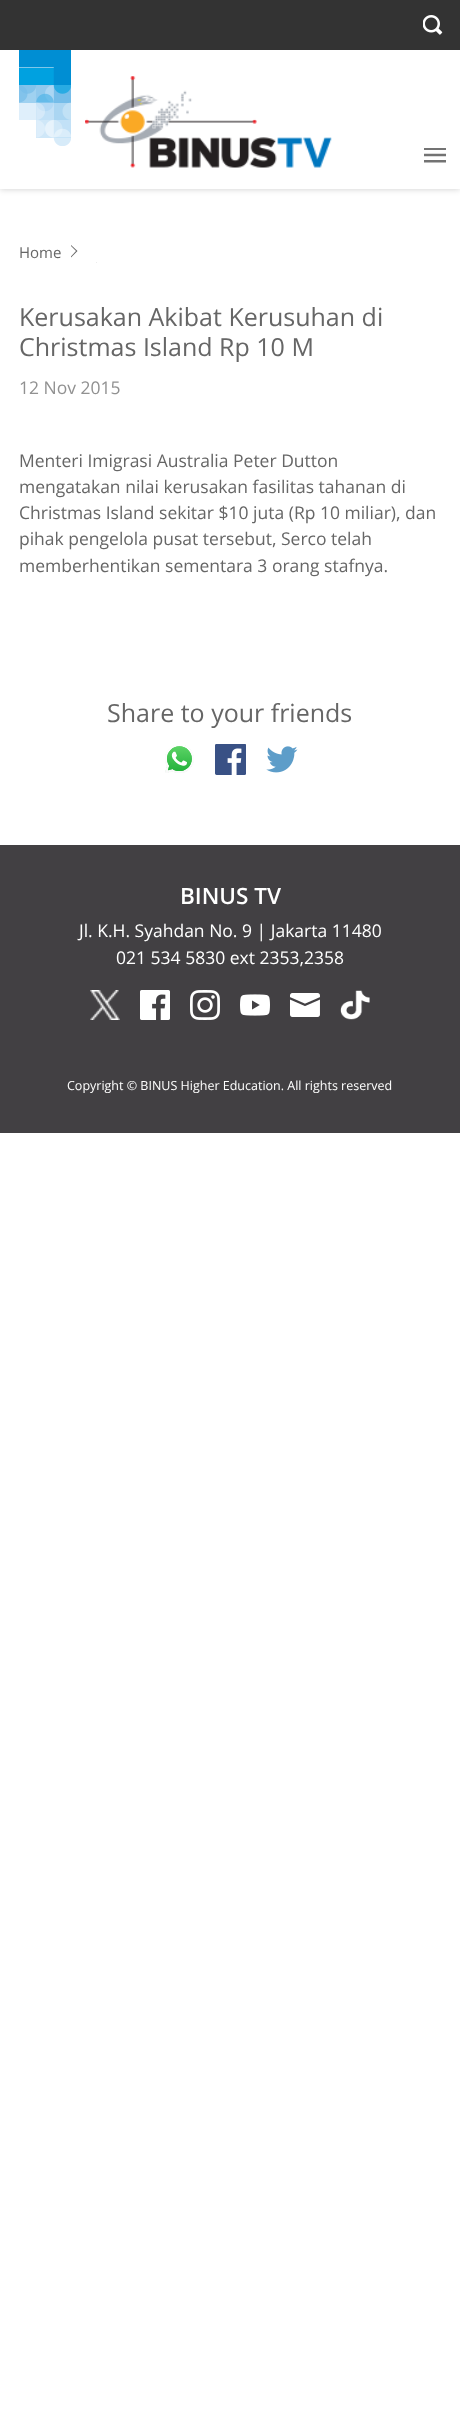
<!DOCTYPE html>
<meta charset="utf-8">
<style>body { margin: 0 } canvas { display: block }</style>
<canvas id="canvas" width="460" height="2426"></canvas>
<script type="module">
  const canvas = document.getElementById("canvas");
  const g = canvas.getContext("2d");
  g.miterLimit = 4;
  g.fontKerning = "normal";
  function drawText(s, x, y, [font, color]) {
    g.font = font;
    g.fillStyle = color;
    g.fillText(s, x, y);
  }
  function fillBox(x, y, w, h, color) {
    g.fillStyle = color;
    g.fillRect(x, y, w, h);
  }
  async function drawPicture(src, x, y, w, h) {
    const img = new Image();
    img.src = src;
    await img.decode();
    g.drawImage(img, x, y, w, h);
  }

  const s1 = ["15px Open Sans", "#666666"];
  const s2 = ["25px Open Sans", "#666666"];
  const s3 = ["17.5px Open Sans", "#919191"];
  const s4 = ["17.5px Open Sans", "#666666"];
  const s5 = ["600 22.5px Open Sans", "#FFFFFF"];
  const s6 = ["17.5px Open Sans", "#FFFFFF"];
  const s7 = ["12.5px Open Sans", "#FFFFFF"];

  fillBox(0, 0, 460, 2426, "#FFFFFF");
  g.fillStyle = "rgba(0, 0, 0, 0.2)";
  g.filter = "blur(3px)";
  g.beginPath();
  g.rect(0, 50, 460, 139);
  g.fill();
  g.filter = "none";
  fillBox(0, 0, 460, 50, "#333333");
  await drawPicture("pic1.png", 423, 15, 20, 20);
  fillBox(0, 50, 460, 139, "#FFFFFF");
  await drawPicture("pic2.png", 19, 50, 52, 96);
  await drawPicture("pic3.png", 85, 76, 247, 92);
  await drawPicture("pic4.png", 424, 148, 22, 15);
  g.fillStyle = "#666666";
  g.beginPath();
  g.moveTo(71, 257.5);
  g.lineTo(71, 245);
  g.lineTo(77.5, 251);
  g.closePath();
  g.fill();
  g.fillStyle = "#FFFFFF";
  g.beginPath();
  g.moveTo(70, 257.5);
  g.lineTo(70, 245);
  g.lineTo(76, 251);
  g.closePath();
  g.fill();
  drawText("Home", 19, 258, s1);
  g.save();
  g.beginPath();
  g.rect(19, 239, 422, 24);
  g.clip();
  g.beginPath();
  g.moveTo(96, 275);
  g.lineTo(96, 262.5);
  g.lineTo(102.5, 269);
  g.closePath();
  g.fill();
  g.restore();
  drawText("Kerusakan Akibat Kerusuhan di", 19, 326, s2);
  drawText("Christmas Island Rp 10 M", 19, 356, s2);
  drawText("12 Nov 2015", 19, 394, s3);
  drawText("Menteri Imigrasi Australia Peter Dutton", 19, 467, s4);
  drawText("mengatakan nilai kerusakan fasilitas tahanan di", 19, 493, s4);
  drawText("Christmas Island sekitar $10 juta (Rp 10 miliar), dan", 19, 519, s4);
  drawText("pihak pengelola pusat tersebut, Serco telah", 19, 545, s4);
  drawText("memberhentikan sementara 3 orang stafnya.", 19, 572, s4);
  drawText("Share to your friends", 107, 722, s2);
  await drawPicture("pic5.png", 165, 745, 29, 28);
  await drawPicture("pic6.png", 215, 744, 31, 31);
  await drawPicture("pic7.png", 266, 746, 32, 27);
  fillBox(0, 845, 460, 288, "#424043");
  drawText("BINUS TV", 180, 904, s5);
  drawText("Jl. K.H. Syahdan No. 9 | Jakarta 11480", 79, 937, s6);
  drawText("021 534 5830 ext 2353,2358", 116, 964, s6);
  await drawPicture("pic8.png", 90, 990, 30, 30);
  await drawPicture("pic9.png", 140, 990, 30, 30);
  await drawPicture("pic10.png", 190, 990, 30, 30);
  await drawPicture("pic11.png", 240, 994, 30, 22);
  await drawPicture("pic12.png", 290, 993, 30, 24);
  await drawPicture("pic13.png", 340, 990, 30, 30);
  drawText("Copyright © BINUS Higher Education. All rights reserved", 67, 1090, s7);
</script>
